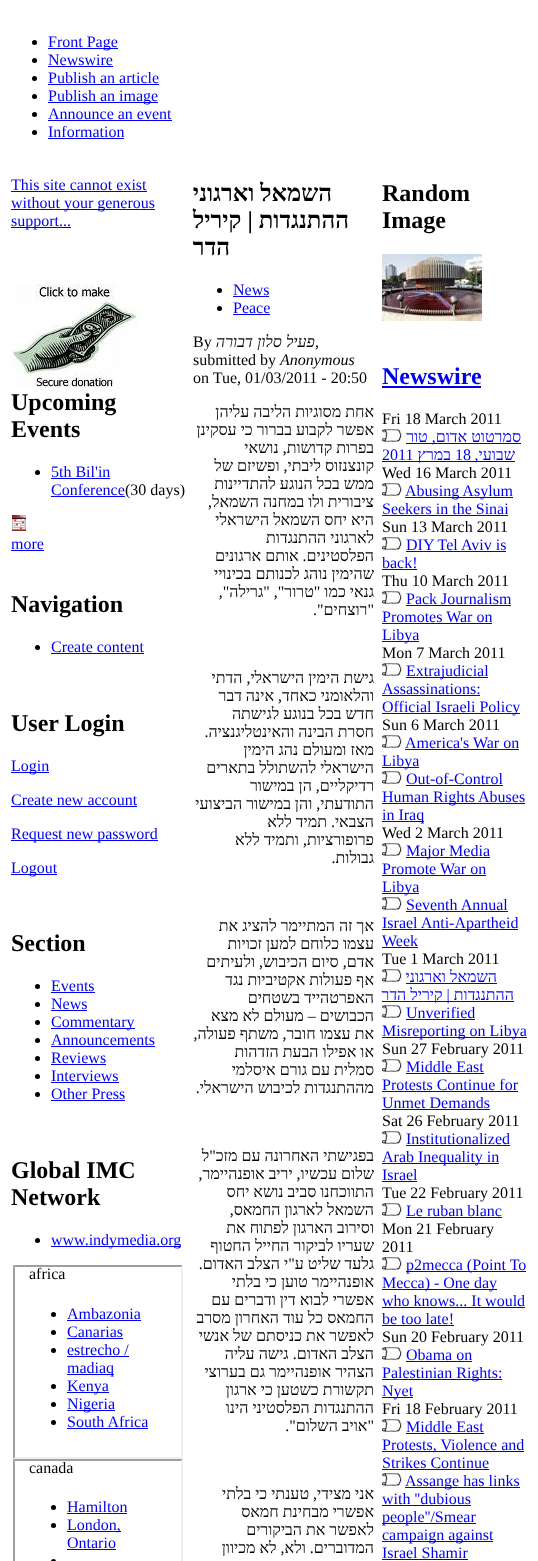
<!DOCTYPE html>
<meta charset="utf-8">
<style>body { margin: 0 } canvas { display: block }</style>
<canvas id="canvas" width="538" height="1561"></canvas>
<script type="module">
  const canvas = document.getElementById("canvas");
  const g = canvas.getContext("2d");
  g.miterLimit = 4;
  g.fontKerning = "normal";
  function drawText(s, x, y, [font, color]) {
    g.font = font;
    g.fillStyle = color;
    g.fillText(s, x, y);
  }
  function fillBox(x, y, w, h, color) {
    g.fillStyle = color;
    g.fillRect(x, y, w, h);
  }
  async function drawPicture(src, x, y, w, h) {
    const img = new Image();
    img.src = src;
    await img.decode();
    g.drawImage(img, x, y, w, h);
  }

  const s1 = ["16px Liberation Serif", "#0000EE"];
  const s2 = ["bold 24px Liberation Serif", "#000000"];
  const s3 = ["16px Liberation Serif", "#000000"];
  const s4 = ["italic 16px Liberation Serif", "#000000"];
  const s5 = ["bold 24px Liberation Serif", "#0000EE"];

  fillBox(0, 0, 538, 1561, "#FFFFFF");
  g.fillStyle = "#000000";
  g.beginPath();
  g.arc(34.5, 42.5, 2.5, 0, Math.PI * 2);
  g.fill();
  fillBox(48, 48, 70, 1, "#0000EE");
  drawText("Front Page", 48, 47, s1);
  g.fillStyle = "#000000";
  g.beginPath();
  g.arc(34.5, 60.5, 2.5, 0, Math.PI * 2);
  g.fill();
  drawText("Newswire", 48, 65, s1);
  fillBox(48, 66, 65, 1, "#0000EE");
  g.fillStyle = "#000000";
  g.beginPath();
  g.arc(34.5, 78.5, 2.5, 0, Math.PI * 2);
  g.fill();
  drawText("Publish an article", 48, 83, s1);
  fillBox(48, 84, 111, 1, "#0000EE");
  g.fillStyle = "#000000";
  g.beginPath();
  g.arc(34.5, 96.5, 2.5, 0, Math.PI * 2);
  g.fill();
  fillBox(48, 102, 110, 1, "#0000EE");
  drawText("Publish an image", 48, 101, s1);
  g.fillStyle = "#000000";
  g.beginPath();
  g.arc(34.5, 114.5, 2.5, 0, Math.PI * 2);
  g.fill();
  drawText("Announce an event", 48, 119, s1);
  fillBox(48, 120, 124, 1, "#0000EE");
  g.fillStyle = "#000000";
  g.beginPath();
  g.arc(34.5, 132.5, 2.5, 0, Math.PI * 2);
  g.fill();
  drawText("Information", 48, 137, s1);
  fillBox(48, 138, 76, 1, "#0000EE");
  drawText("This site cannot exist", 11, 190, s1);
  fillBox(11, 191, 136, 1, "#0000EE");
  fillBox(11, 209, 144, 1, "#0000EE");
  drawText("without your generous", 11, 208, s1);
  fillBox(11, 227, 60, 1, "#0000EE");
  drawText("support...", 11, 226, s1);
  await drawPicture("pic1.png", 11, 284, 127, 104);
  drawText("Upcoming", 11, 410, s2);
  drawText("Events", 11, 437, s2);
  g.beginPath();
  g.arc(37.5, 472.5, 2.5, 0, Math.PI * 2);
  g.fill();
  drawText("5th Bil'in", 51, 477, s1);
  fillBox(51, 478, 59, 1, "#0000EE");
  drawText("Conference", 51, 495, s1);
  fillBox(51, 496, 74, 1, "#0000EE");
  drawText("(30 days)", 125, 495, s3);
  await drawPicture("pic2.png", 12, 515, 14, 16);
  drawText("more", 11, 549, s1);
  fillBox(11, 550, 33, 1, "#0000EE");
  drawText("Navigation", 11, 612, s2);
  g.beginPath();
  g.arc(37.5, 647.5, 2.5, 0, Math.PI * 2);
  g.fill();
  drawText("Create content", 51, 652, s1);
  fillBox(51, 653, 93, 1, "#0000EE");
  drawText("User Login", 11, 731, s2);
  fillBox(11, 772, 38, 1, "#0000EE");
  drawText("Login", 11, 771, s1);
  drawText("Create new account", 11, 805, s1);
  fillBox(11, 806, 126, 1, "#0000EE");
  fillBox(11, 840, 147, 1, "#0000EE");
  drawText("Request new password", 11, 839, s1);
  fillBox(11, 874, 46, 1, "#0000EE");
  drawText("Logout", 11, 873, s1);
  drawText("Section", 11, 951, s2);
  g.beginPath();
  g.arc(37.5, 986.5, 2.5, 0, Math.PI * 2);
  g.fill();
  drawText("Events", 51, 991, s1);
  fillBox(51, 992, 44, 1, "#0000EE");
  g.fillStyle = "#000000";
  g.beginPath();
  g.arc(37.5, 1004.5, 2.5, 0, Math.PI * 2);
  g.fill();
  drawText("News", 51, 1009, s1);
  fillBox(51, 1010, 36, 1, "#0000EE");
  g.fillStyle = "#000000";
  g.beginPath();
  g.arc(37.5, 1022.5, 2.5, 0, Math.PI * 2);
  g.fill();
  fillBox(51, 1028, 84, 1, "#0000EE");
  drawText("Commentary", 51, 1027, s1);
  g.fillStyle = "#000000";
  g.beginPath();
  g.arc(37.5, 1040.5, 2.5, 0, Math.PI * 2);
  g.fill();
  drawText("Announcements", 51, 1045, s1);
  fillBox(51, 1046, 104, 1, "#0000EE");
  g.fillStyle = "#000000";
  g.beginPath();
  g.arc(37.5, 1058.5, 2.5, 0, Math.PI * 2);
  g.fill();
  drawText("Reviews", 51, 1063, s1);
  fillBox(51, 1064, 55, 1, "#0000EE");
  g.fillStyle = "#000000";
  g.beginPath();
  g.arc(37.5, 1076.5, 2.5, 0, Math.PI * 2);
  g.fill();
  drawText("Interviews", 51, 1081, s1);
  fillBox(51, 1082, 68, 1, "#0000EE");
  g.fillStyle = "#000000";
  g.beginPath();
  g.arc(37.5, 1094.5, 2.5, 0, Math.PI * 2);
  g.fill();
  drawText("Other Press", 51, 1099, s1);
  fillBox(51, 1100, 74, 1, "#0000EE");
  drawText("Global IMC", 11, 1178, s2);
  drawText("Network", 11, 1205, s2);
  g.beginPath();
  g.arc(37.5, 1240.5, 2.5, 0, Math.PI * 2);
  g.fill();
  fillBox(51, 1246, 130, 1, "#0000EE");
  drawText("www.indymedia.org", 51, 1245, s1);
  g.fillStyle = "#9F9F9F";
  g.beginPath();
  g.moveTo(13, 1265);
  g.lineTo(183, 1265);
  g.lineTo(181, 1267);
  g.lineTo(15, 1267);
  g.closePath();
  g.fill();
  g.fillStyle = "#EFEFEF";
  g.beginPath();
  g.moveTo(183, 1265);
  g.lineTo(183, 1459);
  g.lineTo(181, 1457);
  g.lineTo(181, 1267);
  g.closePath();
  g.fill();
  g.beginPath();
  g.moveTo(183, 1459);
  g.lineTo(13, 1459);
  g.lineTo(15, 1457);
  g.lineTo(181, 1457);
  g.closePath();
  g.fill();
  g.fillStyle = "#9F9F9F";
  g.beginPath();
  g.moveTo(13, 1459);
  g.lineTo(13, 1265);
  g.lineTo(15, 1267);
  g.lineTo(15, 1457);
  g.closePath();
  g.fill();
  drawText("africa", 29, 1279, s3);
  g.beginPath();
  g.arc(53.5, 1314.5, 2.5, 0, Math.PI * 2);
  g.fill();
  drawText("Ambazonia", 67, 1319, s1);
  fillBox(67, 1320, 74, 1, "#0000EE");
  g.fillStyle = "#000000";
  g.beginPath();
  g.arc(53.5, 1332.5, 2.5, 0, Math.PI * 2);
  g.fill();
  drawText("Canarias", 67, 1337, s1);
  fillBox(67, 1338, 56, 1, "#0000EE");
  g.fillStyle = "#000000";
  g.beginPath();
  g.arc(53.5, 1350.5, 2.5, 0, Math.PI * 2);
  g.fill();
  drawText("estrecho /", 67, 1355, s1);
  fillBox(67, 1356, 62, 1, "#0000EE");
  fillBox(67, 1374, 47, 1, "#0000EE");
  drawText("madiaq", 67, 1373, s1);
  g.fillStyle = "#000000";
  g.beginPath();
  g.arc(53.5, 1386.5, 2.5, 0, Math.PI * 2);
  g.fill();
  fillBox(67, 1392, 42, 1, "#0000EE");
  drawText("Kenya", 67, 1391, s1);
  g.fillStyle = "#000000";
  g.beginPath();
  g.arc(53.5, 1404.5, 2.5, 0, Math.PI * 2);
  g.fill();
  fillBox(67, 1410, 48, 1, "#0000EE");
  drawText("Nigeria", 67, 1409, s1);
  g.fillStyle = "#000000";
  g.beginPath();
  g.arc(53.5, 1422.5, 2.5, 0, Math.PI * 2);
  g.fill();
  drawText("South Africa", 67, 1427, s1);
  fillBox(67, 1428, 81, 1, "#0000EE");
  g.fillStyle = "#9F9F9F";
  g.beginPath();
  g.moveTo(13, 1459);
  g.lineTo(183, 1459);
  g.lineTo(181, 1461);
  g.lineTo(15, 1461);
  g.closePath();
  g.fill();
  g.fillStyle = "#EFEFEF";
  g.beginPath();
  g.moveTo(183, 1459);
  g.lineTo(183, 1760);
  g.lineTo(181, 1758);
  g.lineTo(181, 1461);
  g.closePath();
  g.fill();
  g.fillStyle = "#9F9F9F";
  g.beginPath();
  g.moveTo(13, 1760);
  g.lineTo(13, 1459);
  g.lineTo(15, 1461);
  g.lineTo(15, 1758);
  g.closePath();
  g.fill();
  drawText("canada", 29, 1473, s3);
  g.beginPath();
  g.arc(53.5, 1507.5, 2.5, 0, Math.PI * 2);
  g.fill();
  drawText("Hamilton", 67, 1512, s1);
  fillBox(67, 1513, 60, 1, "#0000EE");
  g.fillStyle = "#000000";
  g.beginPath();
  g.arc(53.5, 1525.5, 2.5, 0, Math.PI * 2);
  g.fill();
  fillBox(67, 1531, 54, 1, "#0000EE");
  drawText("London,", 67, 1530, s1);
  drawText("Ontario", 67, 1548, s1);
  fillBox(67, 1549, 49, 1, "#0000EE");
  g.fillStyle = "#000000";
  g.beginPath();
  g.arc(53.5, 1561.5, 2.5, 0, Math.PI * 2);
  g.fill();
  g.direction = "rtl";
  drawText("השמאל וארגוני", 332, 201, s2);
  drawText("ההתנגדות | קיריל", 349, 228, s2);
  drawText("הדר", 230, 255, s2);
  g.beginPath();
  g.arc(219.5, 290.5, 2.5, 0, Math.PI * 2);
  g.fill();
  g.direction = "ltr";
  drawText("News", 233, 295, s1);
  fillBox(233, 296, 36, 1, "#0000EE");
  g.fillStyle = "#000000";
  g.beginPath();
  g.arc(219.5, 308.5, 2.5, 0, Math.PI * 2);
  g.fill();
  drawText("Peace", 233, 313, s1);
  fillBox(233, 314, 37, 1, "#0000EE");
  drawText("By", 193, 347, s3);
  g.direction = "rtl";
  drawText("פעיל סלון דבורה", 315, 347, s4);
  g.direction = "ltr";
  drawText(",", 315, 347, s3);
  drawText("submitted by", 193, 365, s3);
  drawText("Anonymous", 280, 365, s4);
  drawText("on Tue, 01/03/2011 - 20:50", 193, 383, s3);
  g.direction = "rtl";
  drawText("אחת מסוגיות הליבה עליהן", 374, 417, s3);
  drawText("אפשר לקבוע בברור כי עסקינן", 374, 435, s3);
  drawText("בפרות קדושות, נושאי", 374, 453, s3);
  drawText("קונצנזוס ליבתי, ופשיזם של", 374, 471, s3);
  drawText("ממש בכל הנוגע להתדיינות", 374, 489, s3);
  drawText("ציבורית ולו במחנה השמאל,", 374, 507, s3);
  drawText("היא יחס השמאל הישראלי", 374, 525, s3);
  drawText("לארגוני ההתנגדות", 374, 543, s3);
  drawText("הפלסטינים. אותם ארגונים", 374, 561, s3);
  drawText("שהימין נוהג לכנותם בכינויי", 374, 579, s3);
  drawText("גנאי כמו \"טרור\", \"גרילה\",", 374, 597, s3);
  drawText("\"רוצחים\".", 374, 615, s3);
  drawText("גישת הימין הישראלי, הדתי", 374, 683, s3);
  drawText("והלאומני כאחד, אינה דבר", 374, 701, s3);
  drawText("חדש בכל בנוגע לגישתה", 374, 719, s3);
  drawText("חסרת הבינה והאינטליגנציה.", 374, 737, s3);
  drawText("מאז ומעולם נהג הימין", 374, 755, s3);
  drawText("הישראלי להשתולל בתארים", 374, 773, s3);
  drawText("רדיקליים, הן במישור", 374, 791, s3);
  drawText("התודעתי, והן במישור הביצועי", 374, 809, s3);
  drawText("הצבאי. תמיד ללא", 374, 827, s3);
  drawText("פרופורציות, ותמיד ללא", 374, 845, s3);
  drawText("גבולות.", 374, 863, s3);
  drawText("אך זה המתיימר להציג את", 374, 931, s3);
  drawText("עצמו כלוחם למען זכויות", 374, 949, s3);
  drawText("אדם, סיום הכיבוש, ולעיתים", 374, 967, s3);
  drawText("אף פעולות אקטיביות נגד", 374, 985, s3);
  drawText("האפרטהייד בשטחים", 374, 1003, s3);
  drawText("הכבושים – מעולם לא מצא", 374, 1021, s3);
  drawText("את עצמו חובר, משתף פעולה,", 374, 1039, s3);
  drawText("או אפילו הבעת הזדהות", 374, 1057, s3);
  drawText("סמלית עם גורם איסלמי", 374, 1075, s3);
  drawText("מההתנגדות לכיבוש הישראלי.", 374, 1093, s3);
  drawText("בפגישתי האחרונה עם מזכ\"ל", 374, 1161, s3);
  drawText("שלום עכשיו, יריב אופנהיימר,", 374, 1179, s3);
  drawText("התווכחנו סביב נושא יחס", 374, 1197, s3);
  drawText("השמאל לארגון החמאס,", 374, 1215, s3);
  drawText("וסירוב הארגון לפתוח את", 374, 1233, s3);
  drawText("שעריו לביקור החייל החטוף", 374, 1251, s3);
  drawText("גלעד שליט ע\"י הצלב האדום.", 374, 1269, s3);
  drawText("אופנהיימר טוען כי בלתי", 374, 1287, s3);
  drawText("אפשרי לבוא דין ודברים עם", 374, 1305, s3);
  drawText("החמאס כל עוד האחרון מסרב", 374, 1323, s3);
  drawText("לאפשר את כניסתם של אנשי", 374, 1341, s3);
  drawText("הצלב האדום. גישה עליה", 374, 1359, s3);
  drawText("הצהיר אופנהיימר גם בערוצי", 374, 1377, s3);
  drawText("תקשורת כשטען כי ארגון", 374, 1395, s3);
  drawText("ההתנגדות הפלסטיני הינו", 374, 1413, s3);
  drawText("\"אויב השלום\".", 374, 1431, s3);
  drawText("אני מצידי, טענתי כי בלתי", 374, 1499, s3);
  drawText("אפשרי מבחינת חמאס", 374, 1517, s3);
  drawText("לאפשר את הביקורים", 374, 1535, s3);
  drawText("המדוברים. ולא, לא מכיוון", 374, 1553, s3);
  g.direction = "ltr";
  drawText("Random", 382, 201, s2);
  drawText("Image", 382, 228, s2);
  await drawPicture("pic3.png", 382, 254, 100, 67);
  drawText("Newswire", 382, 384, s5);
  fillBox(382, 386, 99, 2, "#0000EE");
  drawText("Fri 18 March 2011", 382, 424, s3);
  await drawPicture("pic4.png", 382, 429, 20, 13);
  fillBox(406, 443, 115, 1, "#0000EE");
  g.direction = "rtl";
  drawText("סמרטוט אדום, טור", 521, 442, s1);
  g.direction = "ltr";
  drawText("2011", 382, 460, s1);
  fillBox(382, 461, 31, 1, "#0000EE");
  fillBox(413, 461, 102, 1, "#0000EE");
  g.direction = "rtl";
  drawText("במרץ", 451, 460, s1);
  g.direction = "ltr";
  drawText("18", 455, 460, s1);
  g.direction = "rtl";
  drawText("שבועי,", 515, 460, s1);
  g.direction = "ltr";
  drawText("Wed 16 March 2011", 382, 478, s3);
  await drawPicture("pic4.png", 382, 483, 20, 13);
  fillBox(405, 497, 108, 1, "#0000EE");
  drawText("Abusing Asylum", 405, 496, s1);
  drawText("Seekers in the Sinai", 382, 514, s1);
  fillBox(382, 515, 126, 1, "#0000EE");
  drawText("Sun 13 March 2011", 382, 532, s3);
  await drawPicture("pic4.png", 382, 537, 20, 13);
  drawText("DIY Tel Aviv is", 406, 550, s1);
  fillBox(406, 551, 100, 1, "#0000EE");
  drawText("back!", 382, 568, s1);
  fillBox(382, 569, 35, 1, "#0000EE");
  drawText("Thu 10 March 2011", 382, 586, s3);
  await drawPicture("pic4.png", 382, 591, 20, 13);
  drawText("Pack Journalism", 406, 604, s1);
  fillBox(406, 605, 105, 1, "#0000EE");
  drawText("Promotes War on", 382, 622, s1);
  fillBox(382, 623, 110, 1, "#0000EE");
  fillBox(382, 641, 37, 1, "#0000EE");
  drawText("Libya", 382, 640, s1);
  drawText("Mon 7 March 2011", 382, 658, s3);
  await drawPicture("pic4.png", 382, 663, 20, 13);
  fillBox(406, 677, 82, 1, "#0000EE");
  drawText("Extrajudicial", 406, 676, s1);
  drawText("Assassinations:", 382, 694, s1);
  fillBox(382, 695, 98, 1, "#0000EE");
  fillBox(382, 713, 138, 1, "#0000EE");
  drawText("Official Israeli Policy", 382, 712, s1);
  drawText("Sun 6 March 2011", 382, 730, s3);
  await drawPicture("pic4.png", 382, 735, 20, 13);
  drawText("America's War on", 405, 748, s1);
  fillBox(405, 749, 114, 1, "#0000EE");
  fillBox(382, 767, 37, 1, "#0000EE");
  drawText("Libya", 382, 766, s1);
  await drawPicture("pic4.png", 382, 771, 20, 13);
  drawText("Out-of-Control", 406, 784, s1);
  fillBox(406, 785, 97, 1, "#0000EE");
  fillBox(382, 803, 143, 1, "#0000EE");
  drawText("Human Rights Abuses", 382, 802, s1);
  fillBox(382, 821, 42, 1, "#0000EE");
  drawText("in Iraq", 382, 820, s1);
  drawText("Wed 2 March 2011", 382, 838, s3);
  await drawPicture("pic4.png", 382, 843, 20, 13);
  fillBox(406, 857, 84, 1, "#0000EE");
  drawText("Major Media", 406, 856, s1);
  drawText("Promote War on", 382, 874, s1);
  fillBox(382, 875, 104, 1, "#0000EE");
  fillBox(382, 893, 37, 1, "#0000EE");
  drawText("Libya", 382, 892, s1);
  await drawPicture("pic4.png", 382, 897, 20, 13);
  drawText("Seventh Annual", 406, 910, s1);
  fillBox(406, 911, 102, 1, "#0000EE");
  fillBox(382, 929, 136, 1, "#0000EE");
  drawText("Israel Anti-Apartheid", 382, 928, s1);
  drawText("Week", 382, 946, s1);
  fillBox(382, 947, 36, 1, "#0000EE");
  drawText("Tue 1 March 2011", 382, 964, s3);
  await drawPicture("pic4.png", 382, 969, 20, 13);
  g.direction = "rtl";
  drawText("השמאל וארגוני", 497, 982, s1);
  fillBox(406, 983, 91, 1, "#0000EE");
  fillBox(382, 1001, 132, 1, "#0000EE");
  drawText("ההתנגדות | קיריל הדר", 514, 1000, s1);
  await drawPicture("pic4.png", 382, 1005, 20, 13);
  g.direction = "ltr";
  drawText("Unverified", 406, 1018, s1);
  fillBox(406, 1019, 69, 1, "#0000EE");
  fillBox(382, 1037, 145, 1, "#0000EE");
  drawText("Misreporting on Libya", 382, 1036, s1);
  drawText("Sun 27 February 2011", 382, 1054, s3);
  await drawPicture("pic4.png", 382, 1059, 20, 13);
  drawText("Middle East", 406, 1072, s1);
  fillBox(406, 1073, 78, 1, "#0000EE");
  drawText("Protests Continue for", 382, 1090, s1);
  fillBox(382, 1091, 136, 1, "#0000EE");
  drawText("Unmet Demands", 382, 1108, s1);
  fillBox(382, 1109, 108, 1, "#0000EE");
  drawText("Sat 26 February 2011", 382, 1126, s3);
  await drawPicture("pic4.png", 382, 1131, 20, 13);
  drawText("Institutionalized", 406, 1144, s1);
  fillBox(406, 1145, 104, 1, "#0000EE");
  fillBox(382, 1163, 117, 1, "#0000EE");
  drawText("Arab Inequality in", 382, 1162, s1);
  drawText("Israel", 382, 1180, s1);
  fillBox(382, 1181, 35, 1, "#0000EE");
  drawText("Tue 22 February 2011", 382, 1198, s3);
  await drawPicture("pic4.png", 382, 1203, 20, 13);
  drawText("Le ruban blanc", 406, 1216, s1);
  fillBox(406, 1217, 96, 1, "#0000EE");
  drawText("Mon 21 February", 382, 1234, s3);
  drawText("2011", 382, 1252, s3);
  await drawPicture("pic4.png", 382, 1257, 20, 13);
  fillBox(406, 1271, 120, 1, "#0000EE");
  drawText("p2mecca (Point To", 406, 1270, s1);
  fillBox(382, 1289, 115, 1, "#0000EE");
  drawText("Mecca) - One day", 382, 1288, s1);
  drawText("who knows... It would", 382, 1306, s1);
  fillBox(382, 1307, 143, 1, "#0000EE");
  drawText("be too late!", 382, 1324, s1);
  fillBox(382, 1325, 72, 1, "#0000EE");
  drawText("Sun 20 February 2011", 382, 1342, s3);
  await drawPicture("pic4.png", 382, 1347, 20, 13);
  drawText("Obama on", 406, 1360, s1);
  fillBox(406, 1361, 66, 1, "#0000EE");
  fillBox(382, 1379, 120, 1, "#0000EE");
  drawText("Palestinian Rights:", 382, 1378, s1);
  fillBox(382, 1397, 31, 1, "#0000EE");
  drawText("Nyet", 382, 1396, s1);
  drawText("Fri 18 February 2011", 382, 1414, s3);
  await drawPicture("pic4.png", 382, 1419, 20, 13);
  drawText("Middle East", 406, 1432, s1);
  fillBox(406, 1433, 78, 1, "#0000EE");
  fillBox(382, 1451, 142, 1, "#0000EE");
  drawText("Protests, Violence and", 382, 1450, s1);
  drawText("Strikes Continue", 382, 1468, s1);
  fillBox(382, 1469, 107, 1, "#0000EE");
  await drawPicture("pic4.png", 382, 1473, 20, 13);
  fillBox(405, 1487, 115, 1, "#0000EE");
  drawText("Assange has links", 405, 1486, s1);
  drawText("with ''dubious", 382, 1504, s1);
  fillBox(382, 1505, 89, 1, "#0000EE");
  fillBox(382, 1523, 94, 1, "#0000EE");
  drawText("people''/Smear", 382, 1522, s1);
  fillBox(382, 1541, 111, 1, "#0000EE");
  drawText("campaign against", 382, 1540, s1);
  drawText("Israel Shamir", 382, 1558, s1);
  fillBox(382, 1559, 86, 1, "#0000EE");
</script>
